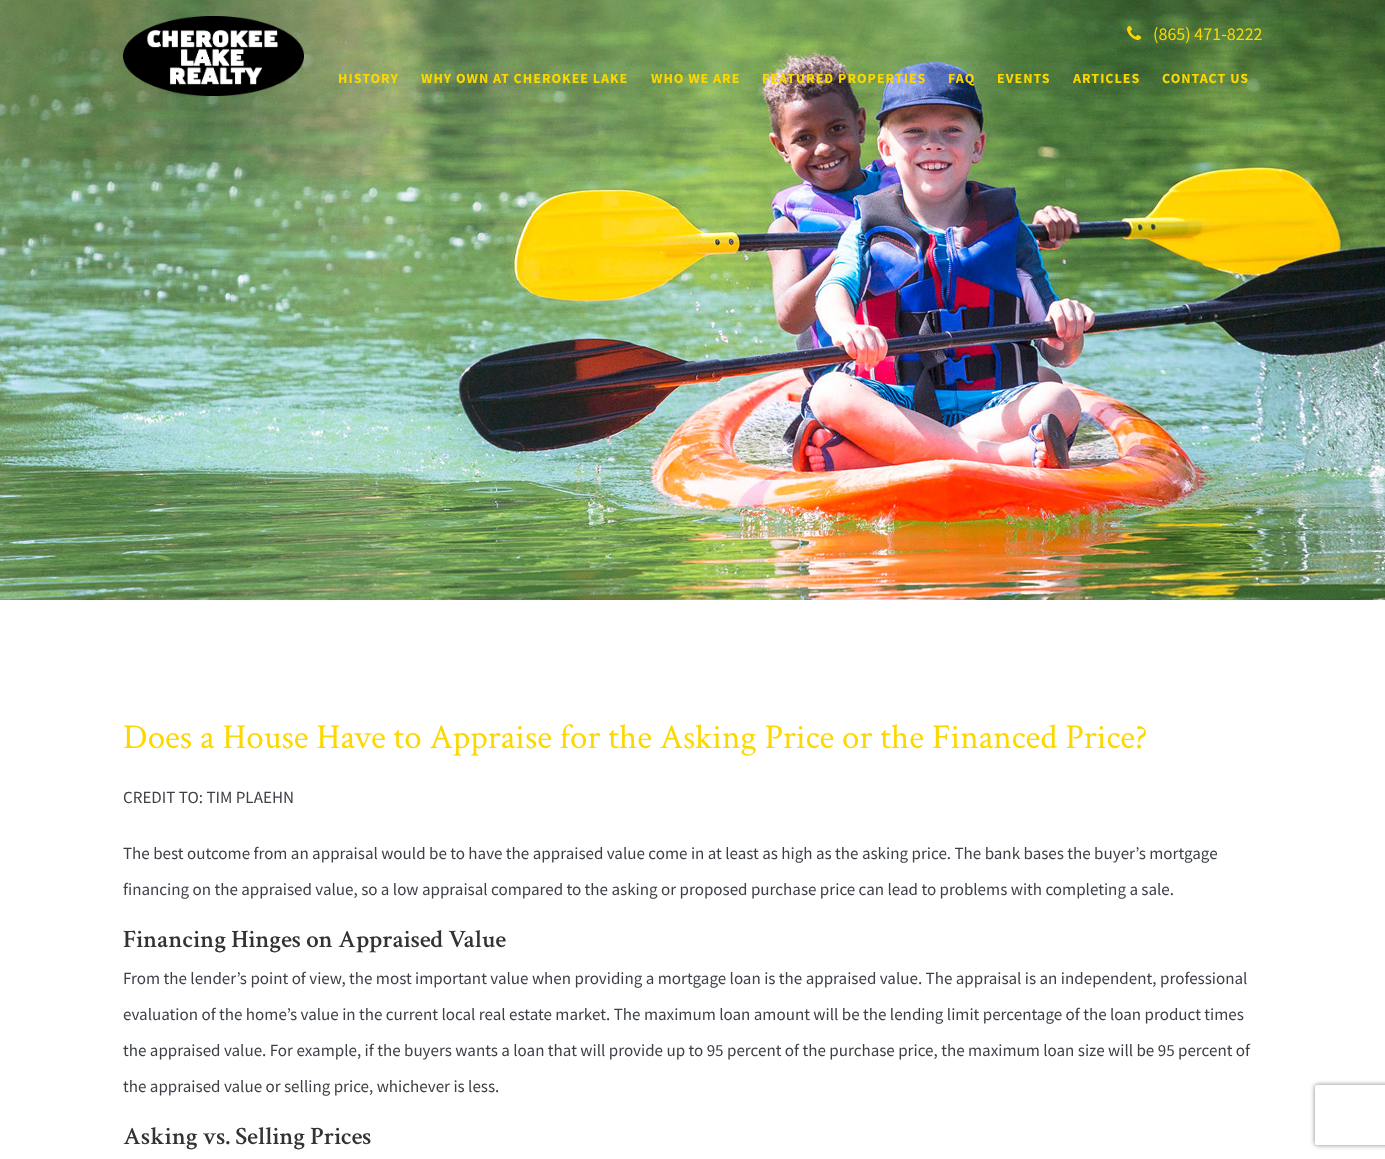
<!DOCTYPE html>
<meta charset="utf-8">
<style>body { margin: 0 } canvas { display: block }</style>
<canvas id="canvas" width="1385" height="1159"></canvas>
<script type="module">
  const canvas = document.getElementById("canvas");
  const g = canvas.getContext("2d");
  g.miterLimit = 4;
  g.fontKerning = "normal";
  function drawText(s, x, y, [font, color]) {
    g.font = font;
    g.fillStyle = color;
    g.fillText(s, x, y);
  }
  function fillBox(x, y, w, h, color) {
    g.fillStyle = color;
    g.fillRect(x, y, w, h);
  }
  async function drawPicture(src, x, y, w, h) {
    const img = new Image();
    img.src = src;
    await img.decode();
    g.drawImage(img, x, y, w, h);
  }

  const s1 = ["18px Source Sans Pro", "#FCD800"];
  const s2 = ["bold 14px Source Sans Pro", "#FCD800"];
  const s3 = ["35px Crimson Text", "#FCD800"];
  const s4 = ["17px Source Sans Pro", "#3D4147"];
  const s5 = ["600 25px Crimson Text", "#333333"];

  fillBox(0, 0, 1385, 1159, "#FFFFFF");
  await drawPicture("pic1.png", 0, 0, 1385, 600);
  await drawPicture("pic2.png", 123, 16, 181, 80);
  await drawPicture("pic3.png", 1127, 25, 15, 15);
  drawText("(865) 471-8222", 1153, 40, s1);
  g.letterSpacing = "1px";
  drawText("HISTORY", 338, 83, s2);
  drawText("WHY OWN AT CHEROKEE LAKE", 421, 83, s2);
  drawText("WHO WE ARE", 651, 83, s2);
  drawText("FEATURED PROPERTIES", 762, 83, s2);
  drawText("FAQ", 948, 83, s2);
  drawText("EVENTS", 997, 83, s2);
  drawText("ARTICLES", 1073, 83, s2);
  drawText("CONTACT US", 1162, 83, s2);
  g.letterSpacing = "0px";
  drawText("Does a House Have to Appraise for the Asking Price or the Financed Price?", 123, 748, s3);
  drawText("CREDIT TO: TIM PLAEHN", 123, 803, s4);
  drawText("The best outcome from an appraisal would be to have the appraised value come in at least as high as the asking price. The bank bases the buyer’s mortgage", 123, 859, s4);
  drawText("financing on the appraised value, so a low appraisal compared to the asking or proposed purchase price can lead to problems with completing a sale.", 123, 895, s4);
  drawText("Financing Hinges on Appraised Value", 123, 947, s5);
  drawText("From the lender’s point of view, the most important value when providing a mortgage loan is the appraised value. The appraisal is an independent, professional", 123, 984, s4);
  drawText("evaluation of the home’s value in the current local real estate market. The maximum loan amount will be the lending limit percentage of the loan product times", 123, 1020, s4);
  drawText("the appraised value. For example, if the buyers wants a loan that will provide up to 95 percent of the purchase price, the maximum loan size will be 95 percent of", 123, 1056, s4);
  drawText("the appraised value or selling price, whichever is less.", 123, 1092, s4);
  drawText("Asking vs. Selling Prices", 123, 1144, s5);
  g.save();
  g.beginPath();
  g.moveTo(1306, 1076);
  g.lineTo(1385, 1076);
  g.lineTo(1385, 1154);
  g.lineTo(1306, 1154);
  g.closePath();
  g.moveTo(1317, 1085);
  g.lineTo(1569, 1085);
  g.bezierCurveTo(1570, 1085, 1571, 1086, 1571, 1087);
  g.lineTo(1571, 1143);
  g.bezierCurveTo(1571, 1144, 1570, 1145, 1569, 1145);
  g.lineTo(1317, 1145);
  g.bezierCurveTo(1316, 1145, 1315, 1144, 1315, 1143);
  g.lineTo(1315, 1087);
  g.bezierCurveTo(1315, 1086, 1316, 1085, 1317, 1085);
  g.closePath();
  g.clip("evenodd");
  g.fillStyle = "#808080";
  g.filter = "blur(2.5px)";
  g.beginPath();
  g.roundRect(1315, 1085, 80, 60, 2);
  g.fill();
  g.filter = "none";
  g.restore();
</script>
